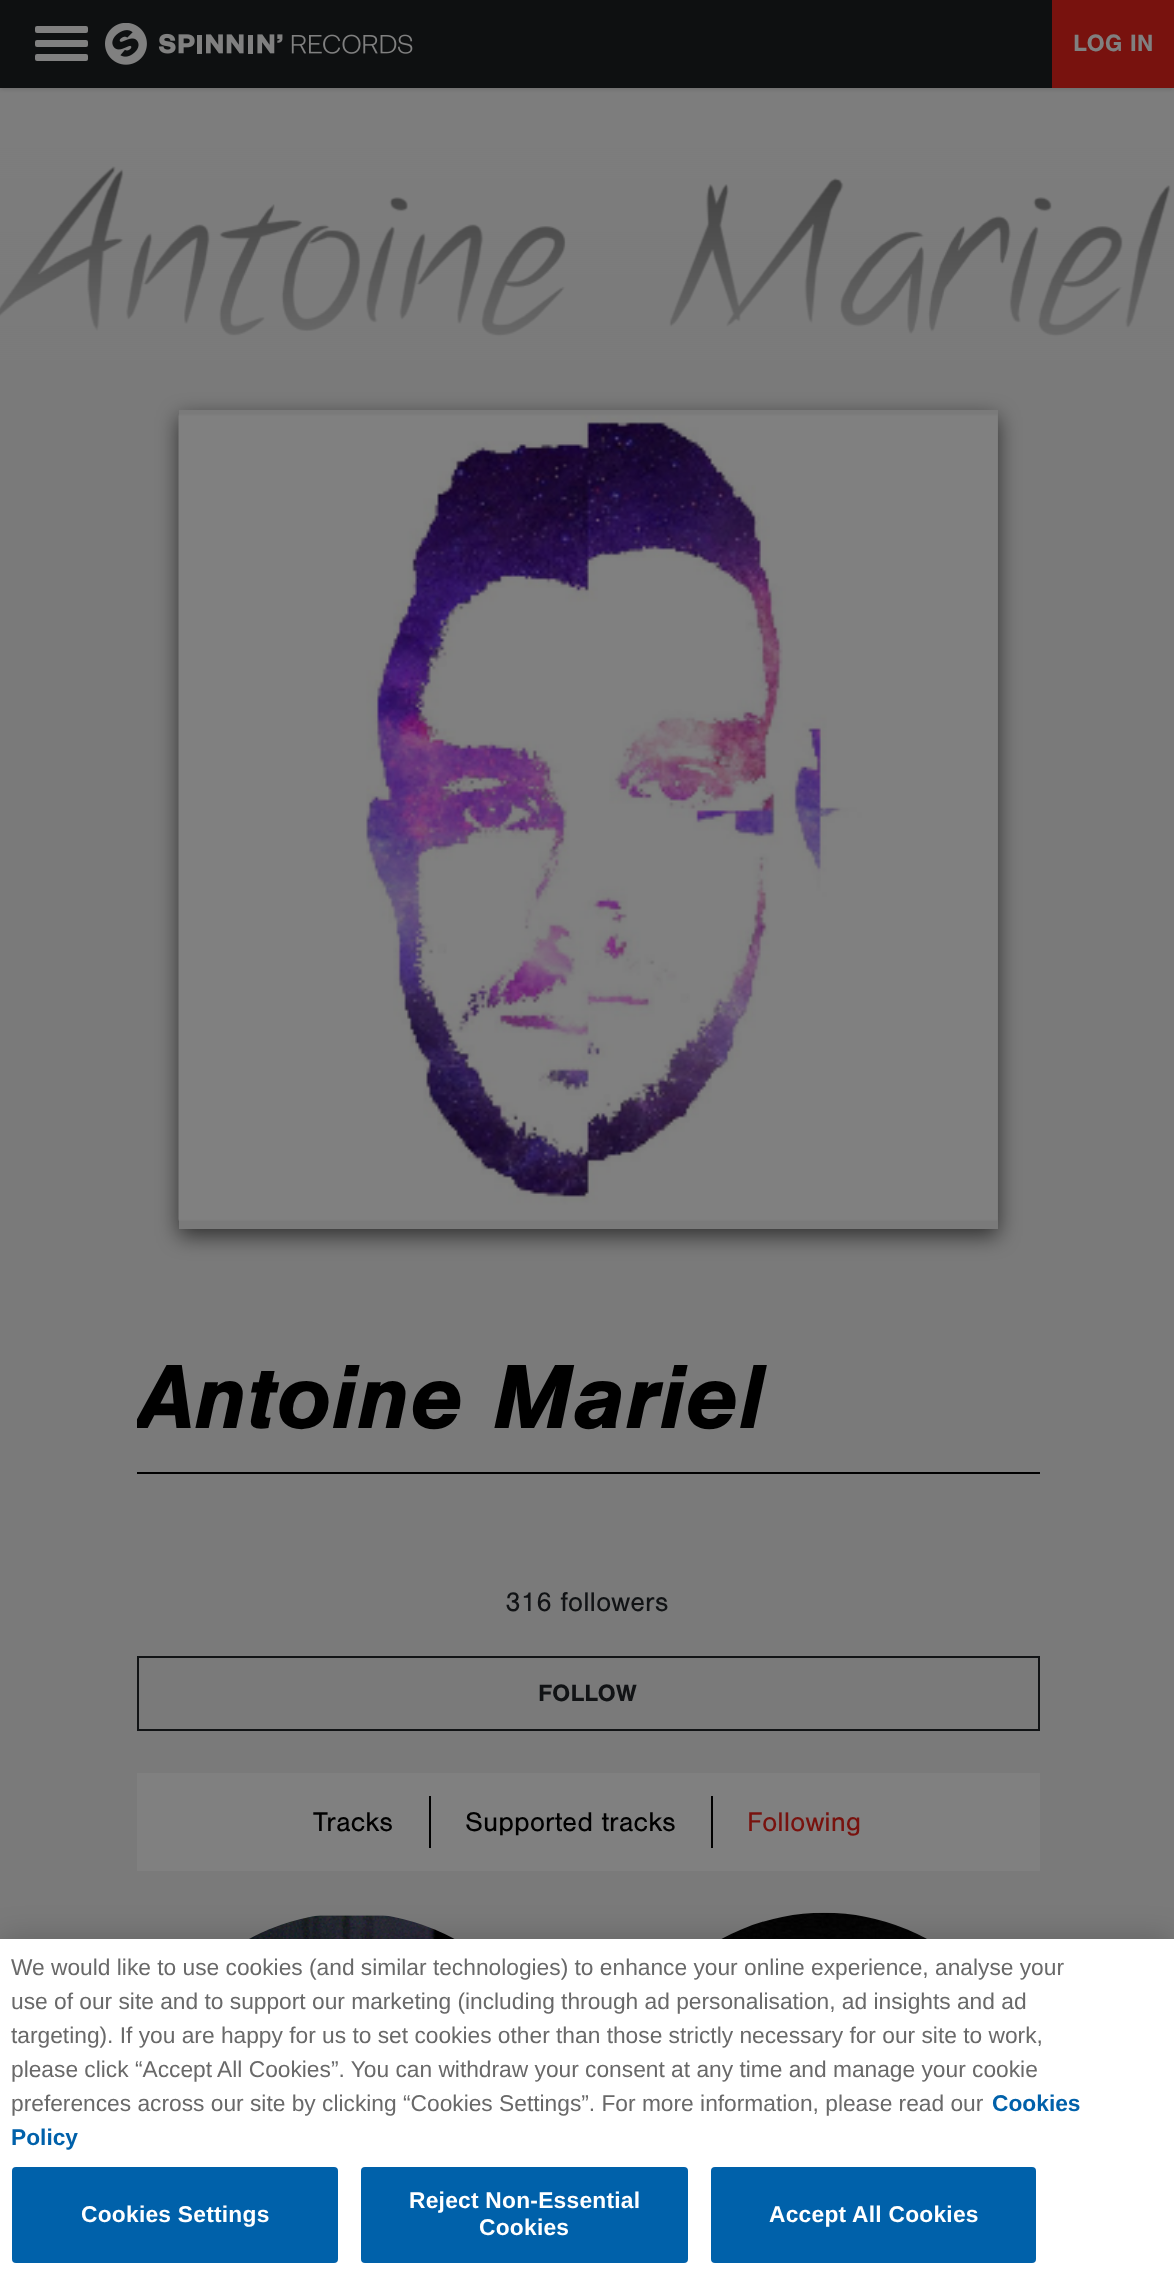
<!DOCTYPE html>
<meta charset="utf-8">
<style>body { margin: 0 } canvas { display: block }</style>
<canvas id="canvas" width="1174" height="2290"></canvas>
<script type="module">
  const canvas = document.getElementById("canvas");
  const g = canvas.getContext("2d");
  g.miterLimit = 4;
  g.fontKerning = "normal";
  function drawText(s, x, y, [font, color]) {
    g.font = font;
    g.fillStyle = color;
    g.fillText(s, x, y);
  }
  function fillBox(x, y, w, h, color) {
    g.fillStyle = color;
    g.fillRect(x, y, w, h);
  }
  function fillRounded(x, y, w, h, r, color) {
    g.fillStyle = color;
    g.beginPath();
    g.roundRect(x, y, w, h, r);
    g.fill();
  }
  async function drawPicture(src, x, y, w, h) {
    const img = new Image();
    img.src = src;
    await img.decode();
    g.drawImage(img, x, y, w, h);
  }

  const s1 = ["bold 24.5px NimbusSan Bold", "#808080"];
  const s2 = ["italic bold 94.5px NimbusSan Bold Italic", "#000000"];
  const s3 = ["28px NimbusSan", "#111315"];
  const s4 = ["bold 24.5px NimbusSan Bold", "#111315"];
  const s5 = ["28px NimbusSan", "#000000"];
  const s6 = ["28px NimbusSan", "#78120E"];
  const s7 = ["22.75px Liberation Sans", "#696969"];
  const s8 = ["bold 22.75px Liberation Sans", "#0061AA"];
  const s9 = ["bold 22.75px Liberation Sans", "#FFFFFF"];

  fillBox(0, 0, 1174, 2290, "#7A7A7A");
  await drawPicture("pic2.png", 0, 88, 1174, 349);
  g.fillStyle = "rgba(0, 0, 0, 0.15)";
  g.filter = "blur(2px)";
  g.beginPath();
  g.rect(0, 2, 1174, 87);
  g.fill();
  g.filter = "none";
  fillBox(0, 0, 1052, 88, "#0E1011");
  fillRounded(35, 26, 53, 7, 2, "#808080");
  fillRounded(35, 40, 53, 7, 2, "#808080");
  fillRounded(35, 54, 53, 7, 2, "#808080");
  await drawPicture("pic1.png", 105, 23, 308, 42);
  fillBox(1052, 0, 122, 88, "#78120E");
  drawText("LOG IN", 1073, 51, s1);
  g.save();
  g.beginPath();
  g.moveTo(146, 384);
  g.lineTo(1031, 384);
  g.lineTo(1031, 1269);
  g.lineTo(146, 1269);
  g.closePath();
  g.moveTo(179, 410);
  g.lineTo(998, 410);
  g.lineTo(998, 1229);
  g.lineTo(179, 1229);
  g.closePath();
  g.clip("evenodd");
  g.fillStyle = "rgba(0, 0, 0, 0.6)";
  g.filter = "blur(10.5px)";
  g.beginPath();
  g.rect(179, 417, 819, 819);
  g.fill();
  g.filter = "none";
  g.restore();
  await drawPicture("pic3.png", 178, 414, 820, 807);
  fillBox(137, 1472, 903, 2, "#000000");
  g.save();
  g.beginPath();
  g.rect(137, 1288, 903, 229);
  g.clip();
  drawText("Antoine Mariel", 136, 1428, s2);
  g.restore();
  drawText("316 followers", 505, 1611, s3);
  g.strokeStyle = "#111315";
  g.lineWidth = 2;
  g.strokeRect(138, 1657, 901, 73);
  drawText("FOLLOW", 538, 1701, s4);
  fillBox(137, 1773, 903, 98, "#808080");
  fillBox(429, 1796, 2, 52, "#000000");
  drawText("Tracks", 313, 1831, s5);
  fillBox(711, 1796, 2, 52, "#000000");
  drawText("Supported tracks", 465, 1831, s5);
  drawText("Following", 747, 1831, s6);
  await drawPicture("pic4.png", 249, 1915, 206, 24);
  await drawPicture("pic5.png", 721, 1912, 206, 27);
  g.fillStyle = "rgba(0, 0, 0, 0.2)";
  g.filter = "blur(16px)";
  g.beginPath();
  g.rect(0, 1939, 1174, 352);
  g.fill();
  g.filter = "none";
  fillBox(0, 1939, 1174, 351, "#FFFFFF");
  drawText("We would like to use cookies (and similar technologies) to enhance your online experience, analyse your", 11, 1975, s7);
  drawText("use of our site and to support our marketing (including through ad personalisation, ad insights and ad", 11, 2009, s7);
  drawText("targeting). If you are happy for us to set cookies other than those strictly necessary for our site to work,", 11, 2043, s7);
  drawText("please click “Accept All Cookies”. You can withdraw your consent at any time and manage your cookie", 11, 2077, s7);
  drawText("preferences across our site by clicking “Cookies Settings”. For more information, please read our", 11, 2111, s7);
  drawText("Cookies", 992, 2111, s8);
  drawText("Policy", 11, 2145, s8);
  fillRounded(12, 2167, 326, 96, 4, "#0061AA");
  g.letterSpacing = "0.25px";
  drawText("Cookies Settings", 81, 2222, s9);
  fillRounded(361, 2167, 327, 96, 4, "#0061AA");
  drawText("Reject Non-Essential", 409, 2208, s9);
  drawText("Cookies", 479, 2235, s9);
  fillRounded(711, 2167, 325, 96, 4, "#0061AA");
  drawText("Accept All Cookies", 769, 2222, s9);
</script>
